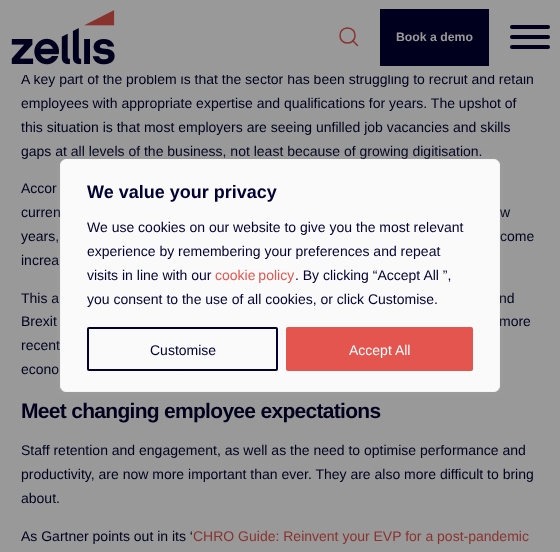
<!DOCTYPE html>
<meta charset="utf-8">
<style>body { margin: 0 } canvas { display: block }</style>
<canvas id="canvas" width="560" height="552"></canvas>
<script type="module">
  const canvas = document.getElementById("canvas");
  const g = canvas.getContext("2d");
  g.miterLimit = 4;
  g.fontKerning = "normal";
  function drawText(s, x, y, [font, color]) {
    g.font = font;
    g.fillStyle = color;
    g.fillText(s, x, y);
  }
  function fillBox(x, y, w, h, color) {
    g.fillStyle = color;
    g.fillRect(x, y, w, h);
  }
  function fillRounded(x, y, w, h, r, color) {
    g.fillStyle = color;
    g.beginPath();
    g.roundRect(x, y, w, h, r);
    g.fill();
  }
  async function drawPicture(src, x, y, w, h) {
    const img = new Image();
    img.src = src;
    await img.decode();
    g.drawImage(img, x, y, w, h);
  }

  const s1 = ["14px Liberation Sans", "#00001E"];
  const s2 = ["bold 12.25px Liberation Sans", "#999999"];
  const s3 = ["bold 21px Liberation Sans", "#00001E"];
  const s4 = ["14px Liberation Sans", "#89332F"];
  const s5 = ["bold 18px Liberation Sans", "#010133"];
  const s6 = ["14px Liberation Sans", "#010133"];
  const s7 = ["14px Liberation Sans", "#E5554F"];
  const s8 = ["14px Liberation Sans", "#FFFFFF"];

  fillBox(0, 0, 560, 552, "#999999");
  drawText("A key part of the problem is that the sector has been struggling to recruit and retain", 21, 84, s1);
  fillBox(24, 73, 502, 2, "#999999");
  await drawPicture("pic1.png", 11, 10, 104, 55);
  g.beginPath();
  g.moveTo(347.5, 43);
  g.bezierCurveTo(357.5, 43, 357.5, 28, 347.5, 28);
  g.bezierCurveTo(337.5, 28, 337.5, 43, 347.5, 43);
  g.closePath();
  g.moveTo(357.5, 45.5);
  g.lineTo(352.5, 40.5);
  g.strokeStyle = "#89332F";
  g.lineWidth = 1.5;
  g.lineCap = "round";
  g.lineJoin = "round";
  g.stroke();
  fillBox(380, 9, 109, 57, "#00001E");
  drawText("Book a demo", 396, 41, s2);
  fillRounded(510, 35, 40, 4, 2, "#00001E");
  fillRounded(510, 25, 40, 4, 2, "#00001E");
  fillRounded(510, 45, 40, 4, 2, "#00001E");
  drawText("employees with appropriate expertise and qualifications for years. The upshot of", 21, 108, s1);
  drawText("this situation is that most employers are seeing unfilled job vacancies and skills", 21, 132, s1);
  drawText("gaps at all levels of the business, not least because of growing digitisation.", 21, 156, s1);
  drawText("Accor", 21, 193, s1);
  drawText("curren", 21, 217, s1);
  drawText("w", 500, 217, s1);
  drawText("years,", 21, 241, s1);
  drawText("come", 500, 241, s1);
  drawText("increa", 21, 265, s1);
  drawText("This a", 21, 303, s1);
  drawText("nd", 499, 303, s1);
  drawText("Brexit", 21, 326, s1);
  drawText("more", 499, 326, s1);
  drawText("recent", 21, 350, s1);
  drawText("econo", 21, 374, s1);
  g.letterSpacing = "-0.7px";
  drawText("Meet changing employee expectations", 21, 418, s3);
  g.letterSpacing = "0px";
  drawText("Staff retention and engagement, as well as the need to optimise performance and", 21, 455, s1);
  drawText("productivity, are now more important than ever. They are also more difficult to bring", 21, 479, s1);
  drawText("about.", 21, 503, s1);
  drawText("As Gartner points out in its ‘", 21, 541, s1);
  drawText("CHRO Guide: Reinvent your EVP for a post-pandemic", 193, 541, s4);
  g.fillStyle = "rgba(172, 171, 171, 0.3)";
  g.filter = "blur(5px)";
  g.beginPath();
  g.roundRect(60, 158, 440, 233, 6);
  g.fill();
  g.filter = "none";
  g.fillStyle = "#FAFAFA";
  g.beginPath();
  g.roundRect(60.5, 159.5, 439, 232, 5.5);
  g.fill();
  g.strokeStyle = "#F4F4F4";
  g.lineWidth = 1;
  g.lineJoin = "miter";
  g.stroke();
  drawText("We value your privacy", 87, 198, s5);
  drawText("We use cookies on our website to give you the most relevant", 87, 232, s6);
  drawText("experience by remembering your preferences and repeat", 87, 256, s6);
  drawText("visits in line with our", 87, 280, s6);
  g.wordSpacing = "-1px";
  drawText("cookie policy", 215, 280, s7);
  g.wordSpacing = "0px";
  drawText(". By clicking “Accept All ”,", 295, 280, s6);
  drawText("you consent to the use of all cookies, or click Customise.", 87, 304, s6);
  g.beginPath();
  g.roundRect(88, 328, 189, 42, 1);
  g.strokeStyle = "#010133";
  g.lineWidth = 2;
  g.stroke();
  drawText("Customise", 150, 355, s6);
  g.fillStyle = "#E4554F";
  g.beginPath();
  g.roundRect(287, 328, 185, 42, 1);
  g.fill();
  g.strokeStyle = "#E4554F";
  g.stroke();
  drawText("Accept All", 349, 355, s8);
</script>
